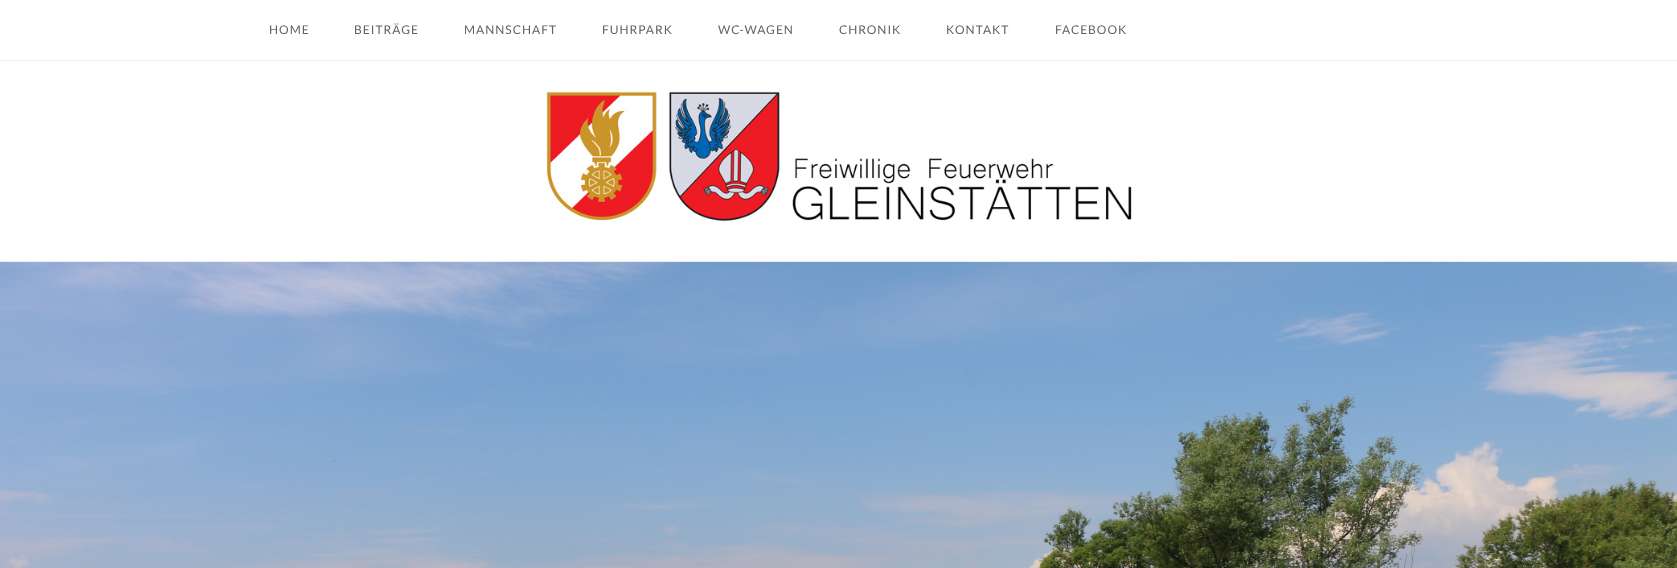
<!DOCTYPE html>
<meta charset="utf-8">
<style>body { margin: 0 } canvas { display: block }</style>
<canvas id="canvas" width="1677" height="568"></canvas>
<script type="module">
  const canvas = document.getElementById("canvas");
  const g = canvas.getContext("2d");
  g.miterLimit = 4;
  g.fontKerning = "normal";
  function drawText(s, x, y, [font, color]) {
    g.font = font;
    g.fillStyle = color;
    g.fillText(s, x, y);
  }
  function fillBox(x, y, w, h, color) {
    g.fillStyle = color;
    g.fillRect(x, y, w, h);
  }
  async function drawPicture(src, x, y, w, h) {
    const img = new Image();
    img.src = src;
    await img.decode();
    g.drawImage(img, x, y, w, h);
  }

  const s1 = ["12px Lato", "#626262"];

  fillBox(0, 0, 1677, 568, "#FFFFFF");
  fillBox(0, 261, 1677, 1, "#EBEBEB");
  fillBox(0, 60, 1677, 1, "#EBEBEB");
  g.letterSpacing = "1px";
  drawText("HOME", 269, 34, s1);
  drawText("BEITRÄGE", 354, 34, s1);
  drawText("MANNSCHAFT", 464, 34, s1);
  drawText("FUHRPARK", 602, 34, s1);
  drawText("WC-WAGEN", 718, 34, s1);
  drawText("CHRONIK", 839, 34, s1);
  drawText("KONTAKT", 946, 34, s1);
  drawText("FACEBOOK", 1055, 34, s1);
  await drawPicture("pic1.png", 546, 88, 586, 134);
  await drawPicture("pic2.png", 0, 262, 1677, 306);
</script>
